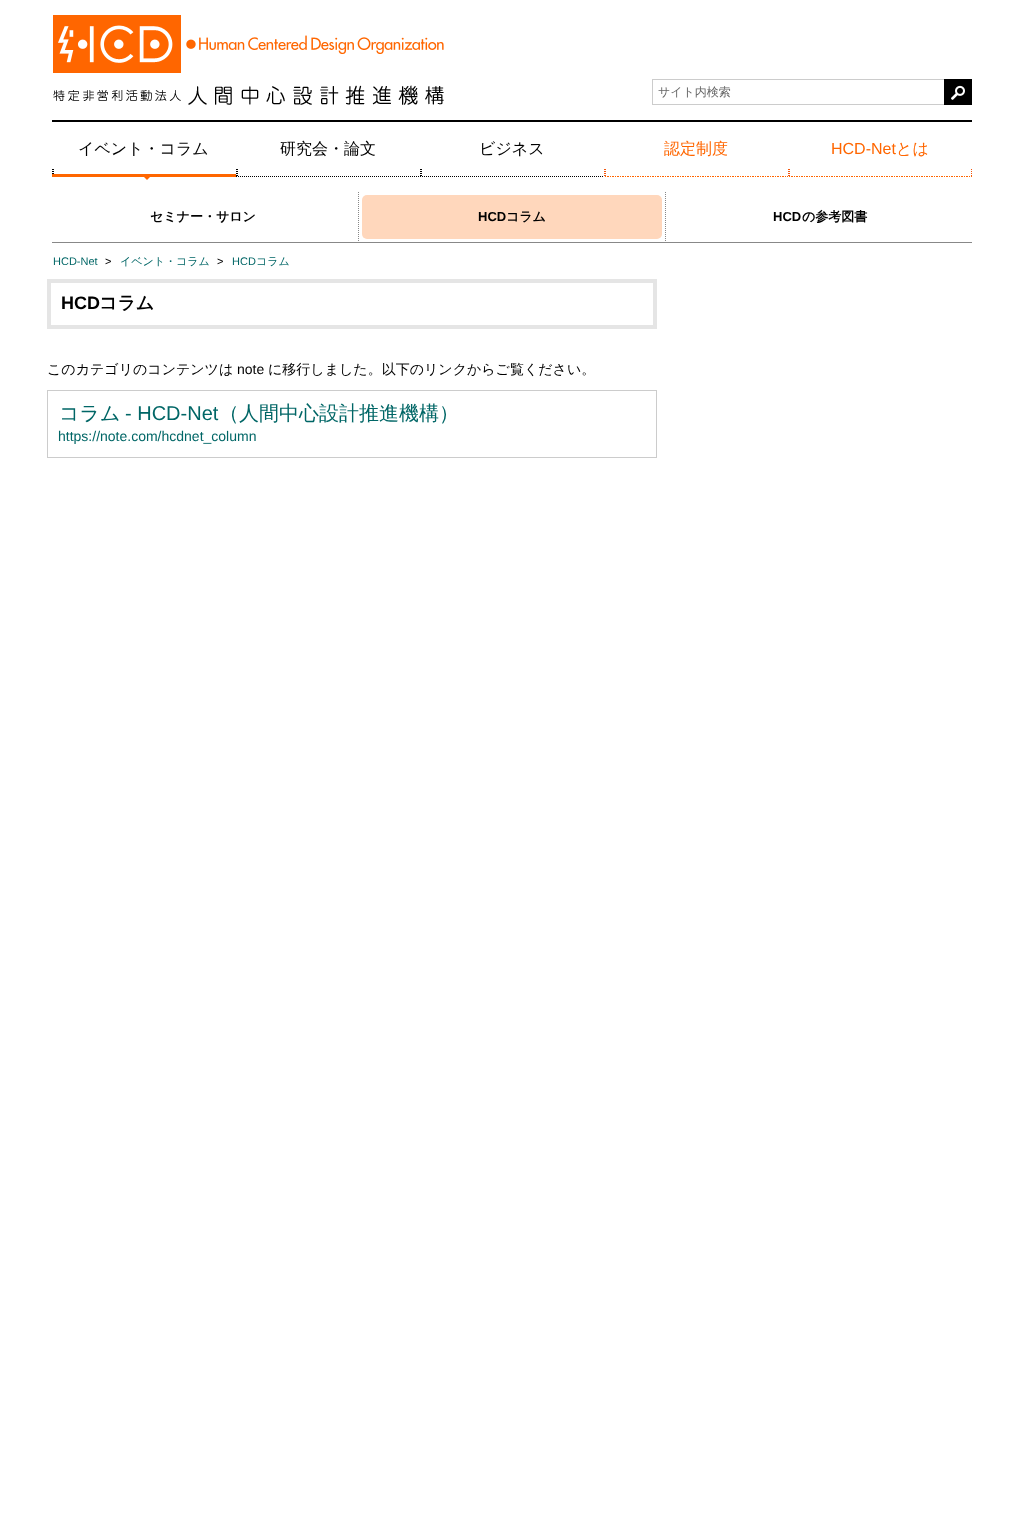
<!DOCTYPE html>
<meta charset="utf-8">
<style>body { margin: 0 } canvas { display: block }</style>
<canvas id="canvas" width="1023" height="1526"></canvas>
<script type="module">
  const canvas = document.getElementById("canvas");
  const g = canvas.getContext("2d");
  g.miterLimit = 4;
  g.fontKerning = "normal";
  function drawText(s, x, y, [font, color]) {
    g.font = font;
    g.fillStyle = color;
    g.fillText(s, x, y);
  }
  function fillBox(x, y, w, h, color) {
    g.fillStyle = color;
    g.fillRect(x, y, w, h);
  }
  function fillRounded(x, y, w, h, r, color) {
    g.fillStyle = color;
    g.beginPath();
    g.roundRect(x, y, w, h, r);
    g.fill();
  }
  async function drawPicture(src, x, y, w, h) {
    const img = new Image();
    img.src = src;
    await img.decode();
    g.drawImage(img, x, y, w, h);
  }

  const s1 = ["500 12px WenQuanYi Zen Hei", "#666666"];
  const s2 = ["500 16px WenQuanYi Zen Hei", "#000000"];
  const s3 = ["500 16px WenQuanYi Zen Hei", "#FF6600"];
  const s4 = ["16px Liberation Sans", "#FF6600"];
  const s5 = ["bold 13px WenQuanYi Zen Hei", "#000000"];
  const s6 = ["bold 13px Liberation Sans", "#000000"];
  const s7 = ["11px Liberation Sans", "#006666"];
  const s8 = ["11px Liberation Sans", "#000000"];
  const s9 = ["500 11px WenQuanYi Zen Hei", "#006666"];
  const s10 = ["bold 18px Liberation Sans", "#000000"];
  const s11 = ["bold 18px WenQuanYi Zen Hei", "#000000"];
  const s12 = ["500 14px WenQuanYi Zen Hei", "#000000"];
  const s13 = ["14px Liberation Sans", "#000000"];
  const s14 = ["500 20px WenQuanYi Zen Hei", "#006666"];
  const s15 = ["20px Liberation Sans", "#006666"];
  const s16 = ["14px Liberation Sans", "#006666"];

  fillBox(0, 0, 1023, 1526, "#FFFFFF");
  await drawPicture("pic1.png", 53, 15, 391, 90);
  g.strokeStyle = "#CCCCCC";
  g.strokeRect(652.5, 79.5, 319, 25);
  drawText("サイト内検索", 658, 96, s1);
  fillBox(944, 79, 28, 26, "#000000");
  await drawPicture("pic2.png", 951, 85, 14, 15);
  await drawPicture("pic3.png", 236, 176, 367, 1);
  fillBox(52, 120, 920, 2, "#000000");
  await drawPicture("pic4.png", 52, 169, 2, 5);
  fillBox(52, 174, 184, 3, "#FF6600");
  drawText("イベント・コラム", 78, 154, s2);
  g.fillStyle = "#FF6600";
  g.beginPath();
  g.moveTo(144, 177);
  g.lineTo(150, 177);
  g.lineTo(147, 180);
  g.closePath();
  g.fill();
  await drawPicture("pic5.png", 236, 169, 2, 7);
  drawText("研究会・論文", 280, 154, s2);
  await drawPicture("pic5.png", 420, 169, 2, 7);
  drawText("ビジネス", 479, 154, s2);
  await drawPicture("pic6.png", 604, 169, 2, 7);
  await drawPicture("pic7.png", 605, 176, 183, 1);
  drawText("認定制度", 664, 154, s3);
  await drawPicture("pic8.png", 788, 169, 184, 7);
  await drawPicture("pic7.png", 789, 176, 183, 1);
  drawText("HCD-Net", 831, 154, s4);
  drawText("とは", 896, 154, s3);
  fillBox(52, 242, 920, 1, "#888888");
  drawText("セミナー・サロン", 150, 221, s5);
  g.beginPath();
  g.moveTo(358.5, 192);
  g.lineTo(358.5, 242);
  g.strokeStyle = "#888888";
  g.setLineDash([1, 1]);
  g.stroke();
  fillRounded(362, 195, 300, 44, 5, "#FFD7BC");
  drawText("HCD", 478, 221, s6);
  drawText("コラム", 506, 221, s5);
  g.beginPath();
  g.moveTo(665.5, 192);
  g.lineTo(665.5, 242);
  g.stroke();
  drawText("HCD", 773, 221, s6);
  drawText("の参考図書", 802, 221, s5);
  drawText("HCD-Net", 53, 265, s7);
  drawText(">", 105, 265, s8);
  drawText("イベント・コラム", 120, 265, s9);
  drawText(">", 217, 265, s8);
  drawText("HCD", 232, 265, s7);
  drawText("コラム", 256, 265, s9);
  g.strokeStyle = "#E5E5E5";
  g.lineWidth = 4;
  g.setLineDash([]);
  g.strokeRect(49, 281, 606, 46);
  drawText("HCD", 61, 309, s10);
  drawText("コラム", 99, 309, s11);
  drawText("このカテゴリのコンテンツは", 47, 374, s12);
  drawText("note", 237, 374, s13);
  drawText("に移行しました。以下のリンクからご覧ください。", 268, 374, s12);
  g.strokeStyle = "#CCCCCC";
  g.lineWidth = 1;
  g.strokeRect(47.5, 390.5, 609, 67);
  drawText("コラム", 59, 420, s14);
  drawText("- HCD-Net", 125, 420, s15);
  drawText("（人間中心設計推進機構）", 219, 420, s14);
  drawText("https://note.com/hcdnet_column", 58, 441, s16);
</script>
